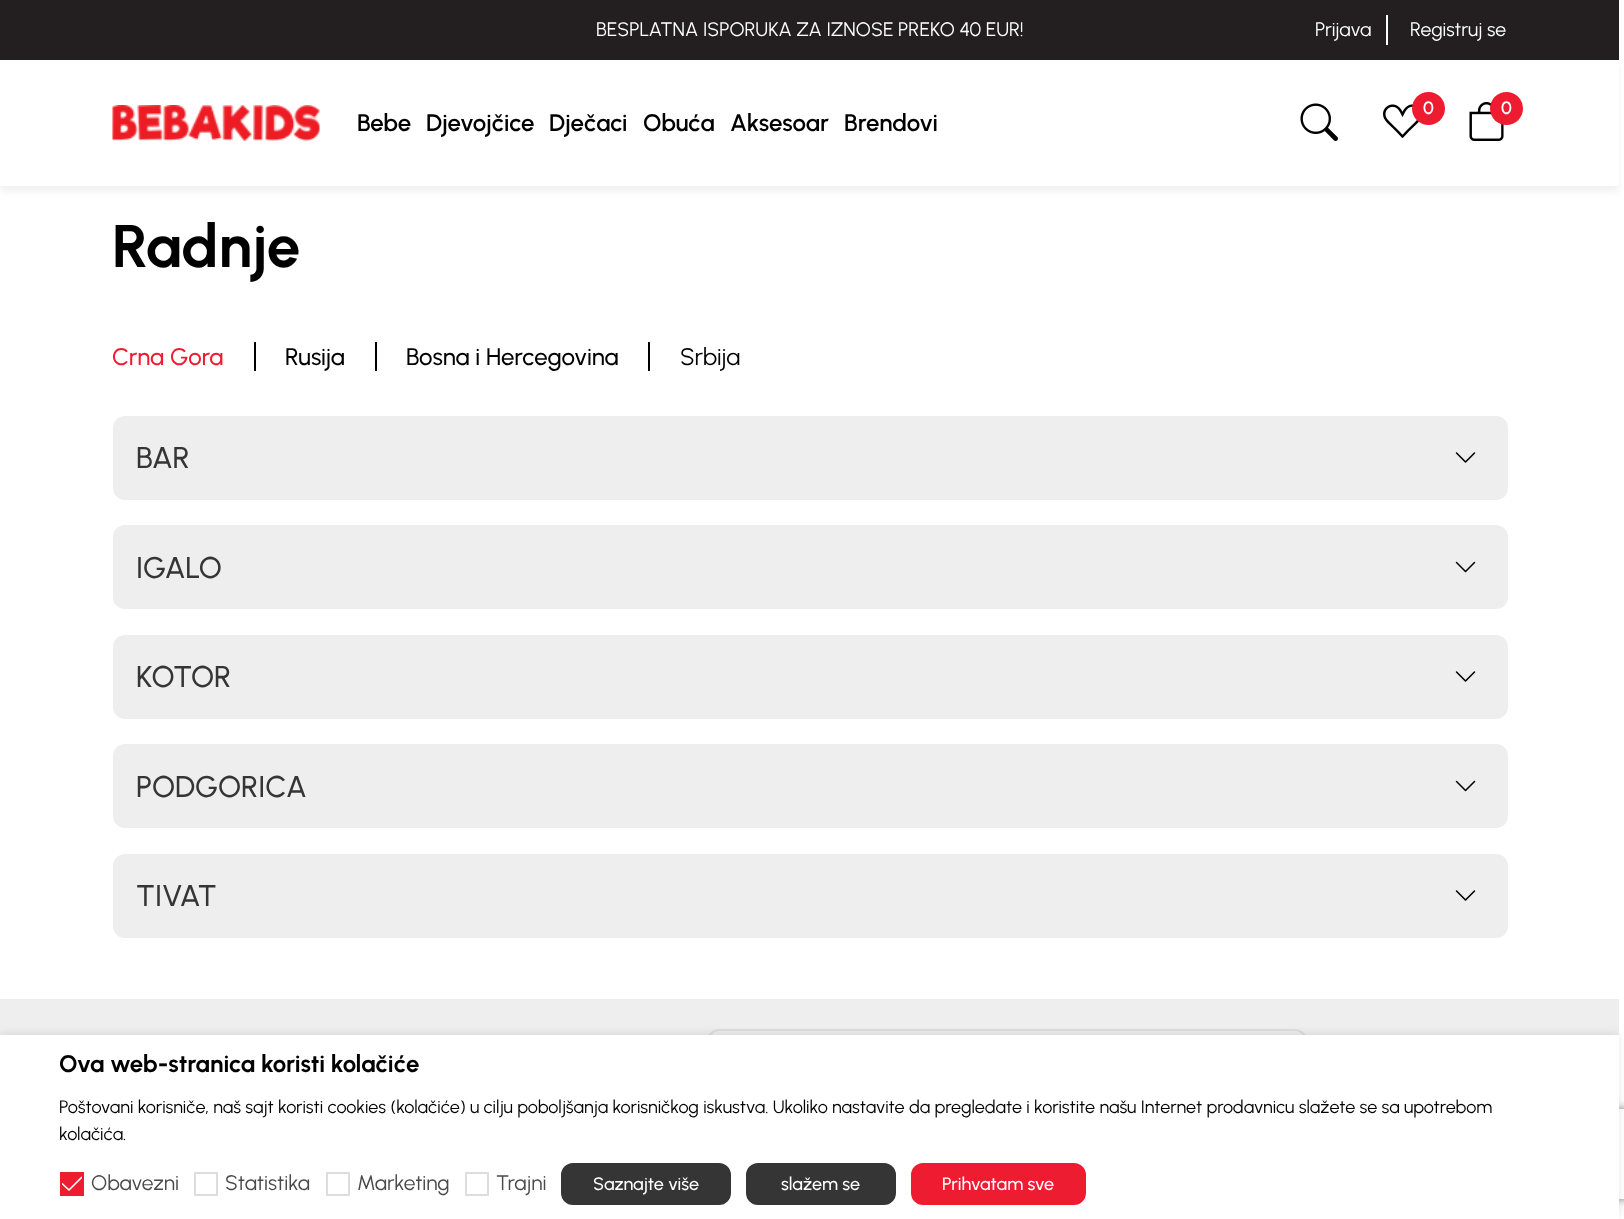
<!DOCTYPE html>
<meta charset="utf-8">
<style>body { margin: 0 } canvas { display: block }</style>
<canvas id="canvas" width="1624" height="1219"></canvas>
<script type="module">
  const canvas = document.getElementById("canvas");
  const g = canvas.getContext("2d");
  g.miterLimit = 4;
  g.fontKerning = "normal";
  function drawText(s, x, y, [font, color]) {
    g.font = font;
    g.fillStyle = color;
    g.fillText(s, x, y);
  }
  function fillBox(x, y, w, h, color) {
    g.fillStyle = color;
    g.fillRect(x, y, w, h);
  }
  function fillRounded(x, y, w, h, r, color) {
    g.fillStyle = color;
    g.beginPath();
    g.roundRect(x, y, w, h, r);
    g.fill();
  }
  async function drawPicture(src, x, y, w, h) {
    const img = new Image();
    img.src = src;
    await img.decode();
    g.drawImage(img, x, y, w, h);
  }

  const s1 = ["19.5px Urbanist", "#FFFFFF"];
  const s2 = ["600 24px Urbanist", "#000000"];
  const s3 = ["600 18px Urbanist", "#FFFFFF"];
  const s4 = ["bold 60px Urbanist", "#000000"];
  const s5 = ["500 24px Urbanist", "#ED1C31"];
  const s6 = ["500 24px Urbanist", "#000000"];
  const s7 = ["24px Urbanist", "#000000"];
  const s8 = ["500 30px Urbanist", "#353535"];
  const s9 = ["bold 24px Urbanist", "#000000"];
  const s10 = ["18px Urbanist", "#000000"];
  const s11 = ["21px Urbanist", "#4A4A4A"];
  const s12 = ["500 18px Urbanist", "#FFFFFF"];

  fillBox(0, 0, 1624, 1219, "#FFFFFF");
  fillBox(0, 0, 1619, 60, "#231F20");
  drawText("BESPLATNA ISPORUKA ZA IZNOSE PREKO 40 EUR!", 596, 36, s1);
  fillBox(1386, 15, 2, 30, "#FFFFFF");
  drawText("Prijava", 1315, 36, s1);
  drawText("Registruj se", 1410, 36, s1);
  g.fillStyle = "rgba(0, 0, 0, 0.05)";
  g.filter = "blur(3px)";
  g.beginPath();
  g.rect(0, 66, 1619, 126);
  g.fill();
  g.filter = "none";
  fillBox(0, 63, 1619, 123, "#FFFFFF");
  await drawPicture("pic1.png", 112, 105, 208, 36);
  drawText("Bebe", 357, 131, s2);
  drawText("Djevojčice", 426, 131, s2);
  drawText("Dječaci", 549, 131, s2);
  drawText("Obuća", 643, 131, s2);
  drawText("Aksesoar", 730, 131, s2);
  drawText("Brendovi", 844, 131, s2);
  await drawPicture("pic2.png", 1300, 103, 38, 38);
  await drawPicture("pic3.png", 1383, 104, 36, 34);
  g.fillStyle = "#ED1C31";
  g.beginPath();
  g.arc(1428.5, 108.5, 16.5, 0, Math.PI * 2);
  g.fill();
  drawText("0", 1423, 114, s3);
  await drawPicture("pic4.png", 1469, 102, 35, 39);
  g.fillStyle = "#ED1C31";
  g.beginPath();
  g.arc(1506.5, 108.5, 16.5, 0, Math.PI * 2);
  g.fill();
  drawText("0", 1501, 114, s3);
  drawText("Radnje", 112, 267, s4);
  fillBox(254, 342, 2, 29, "#000000");
  drawText("Crna Gora", 112, 365, s5);
  fillBox(375, 342, 2, 29, "#000000");
  drawText("Rusija", 285, 365, s6);
  fillBox(648, 342, 2, 29, "#000000");
  drawText("Bosna i Hercegovina", 406, 365, s6);
  drawText("Srbija", 680, 365, s7);
  fillRounded(113, 416, 1395, 84, 12, "#EEEEEE");
  drawText("BAR", 136, 468, s8);
  await drawPicture("pic5.png", 1455, 452, 21, 11);
  fillRounded(113, 525, 1395, 84, 12, "#EEEEEE");
  drawText("IGALO", 136, 578, s8);
  await drawPicture("pic6.png", 1455, 561, 21, 12);
  fillRounded(113, 635, 1395, 84, 12, "#EEEEEE");
  drawText("KOTOR", 136, 687, s8);
  await drawPicture("pic5.png", 1455, 671, 21, 11);
  fillRounded(113, 744, 1395, 84, 12, "#EEEEEE");
  drawText("PODGORICA", 136, 797, s8);
  await drawPicture("pic6.png", 1455, 780, 21, 12);
  fillRounded(113, 854, 1395, 84, 12, "#EEEEEE");
  drawText("TIVAT", 136, 906, s8);
  await drawPicture("pic5.png", 1455, 890, 21, 11);
  fillBox(0, 999, 1619, 36, "#EEEEEE");
  g.beginPath();
  g.roundRect(708, 1030, 598, 70, 11);
  g.strokeStyle = "#DDDDDD";
  g.lineWidth = 2;
  g.stroke();
  g.fillStyle = "rgba(0, 0, 0, 0.1)";
  g.filter = "blur(4.5px)";
  g.beginPath();
  g.rect(0, 1034, 1619, 184);
  g.fill();
  g.filter = "none";
  g.save();
  g.beginPath();
  g.moveTo(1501, 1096);
  g.lineTo(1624, 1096);
  g.lineTo(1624, 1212);
  g.lineTo(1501, 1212);
  g.closePath();
  g.moveTo(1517, 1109);
  g.lineTo(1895, 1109);
  g.bezierCurveTo(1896.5, 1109, 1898, 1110.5, 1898, 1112);
  g.lineTo(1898, 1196);
  g.bezierCurveTo(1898, 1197.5, 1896.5, 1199, 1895, 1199);
  g.lineTo(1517, 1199);
  g.bezierCurveTo(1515.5, 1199, 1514, 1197.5, 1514, 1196);
  g.lineTo(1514, 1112);
  g.bezierCurveTo(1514, 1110.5, 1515.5, 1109, 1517, 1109);
  g.closePath();
  g.clip("evenodd");
  g.fillStyle = "#808080";
  g.filter = "blur(4px)";
  g.beginPath();
  g.roundRect(1514, 1109, 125, 90, 3);
  g.fill();
  g.filter = "none";
  g.restore();
  fillBox(0, 1035, 1619, 184, "#FFFFFF");
  drawText("Ova web-stranica koristi kolačiće", 59, 1072, s9);
  drawText("Poštovani korisniče, naš sajt koristi cookies (kolačiće) u cilju poboljšanja korisničkog iskustva. Ukoliko nastavite da pregledate i koristite našu Internet prodavnicu slažete se sa upotrebom", 59, 1113, s10);
  drawText("kolačića.", 59, 1140, s10);
  fillBox(62, 1174, 20, 20, "#ED1C31");
  g.beginPath();
  g.moveTo(62.5, 1184);
  g.lineTo(69, 1190);
  g.moveTo(69, 1190);
  g.lineTo(81.5, 1177.5);
  g.strokeStyle = "#FFFFFF";
  g.lineWidth = 1.7;
  g.lineCap = "round";
  g.stroke();
  g.strokeStyle = "#ED1C31";
  g.lineWidth = 2;
  g.strokeRect(61, 1173, 22, 22);
  drawText("Obavezni", 91, 1190, s11);
  g.strokeStyle = "#DDDDDD";
  g.strokeRect(195, 1173, 22, 22);
  drawText("Statistika", 225, 1190, s11);
  g.strokeRect(327, 1173, 22, 22);
  drawText("Marketing", 357, 1190, s11);
  g.strokeRect(466, 1173, 22, 22);
  drawText("Trajni", 496, 1190, s11);
  g.fillStyle = "#353535";
  g.beginPath();
  g.roundRect(562, 1164, 168, 40, 11);
  g.fill();
  g.strokeStyle = "#353535";
  g.stroke();
  drawText("Saznajte više", 593, 1190, s12);
  g.fillStyle = "#353535";
  g.beginPath();
  g.roundRect(747, 1164, 148, 40, 11);
  g.fill();
  g.stroke();
  drawText("slažem se", 781, 1190, s12);
  g.fillStyle = "#ED1C31";
  g.beginPath();
  g.roundRect(912, 1164, 173, 40, 11);
  g.fill();
  g.strokeStyle = "#ED1C31";
  g.stroke();
  drawText("Prihvatam sve", 942, 1190, s12);
</script>
